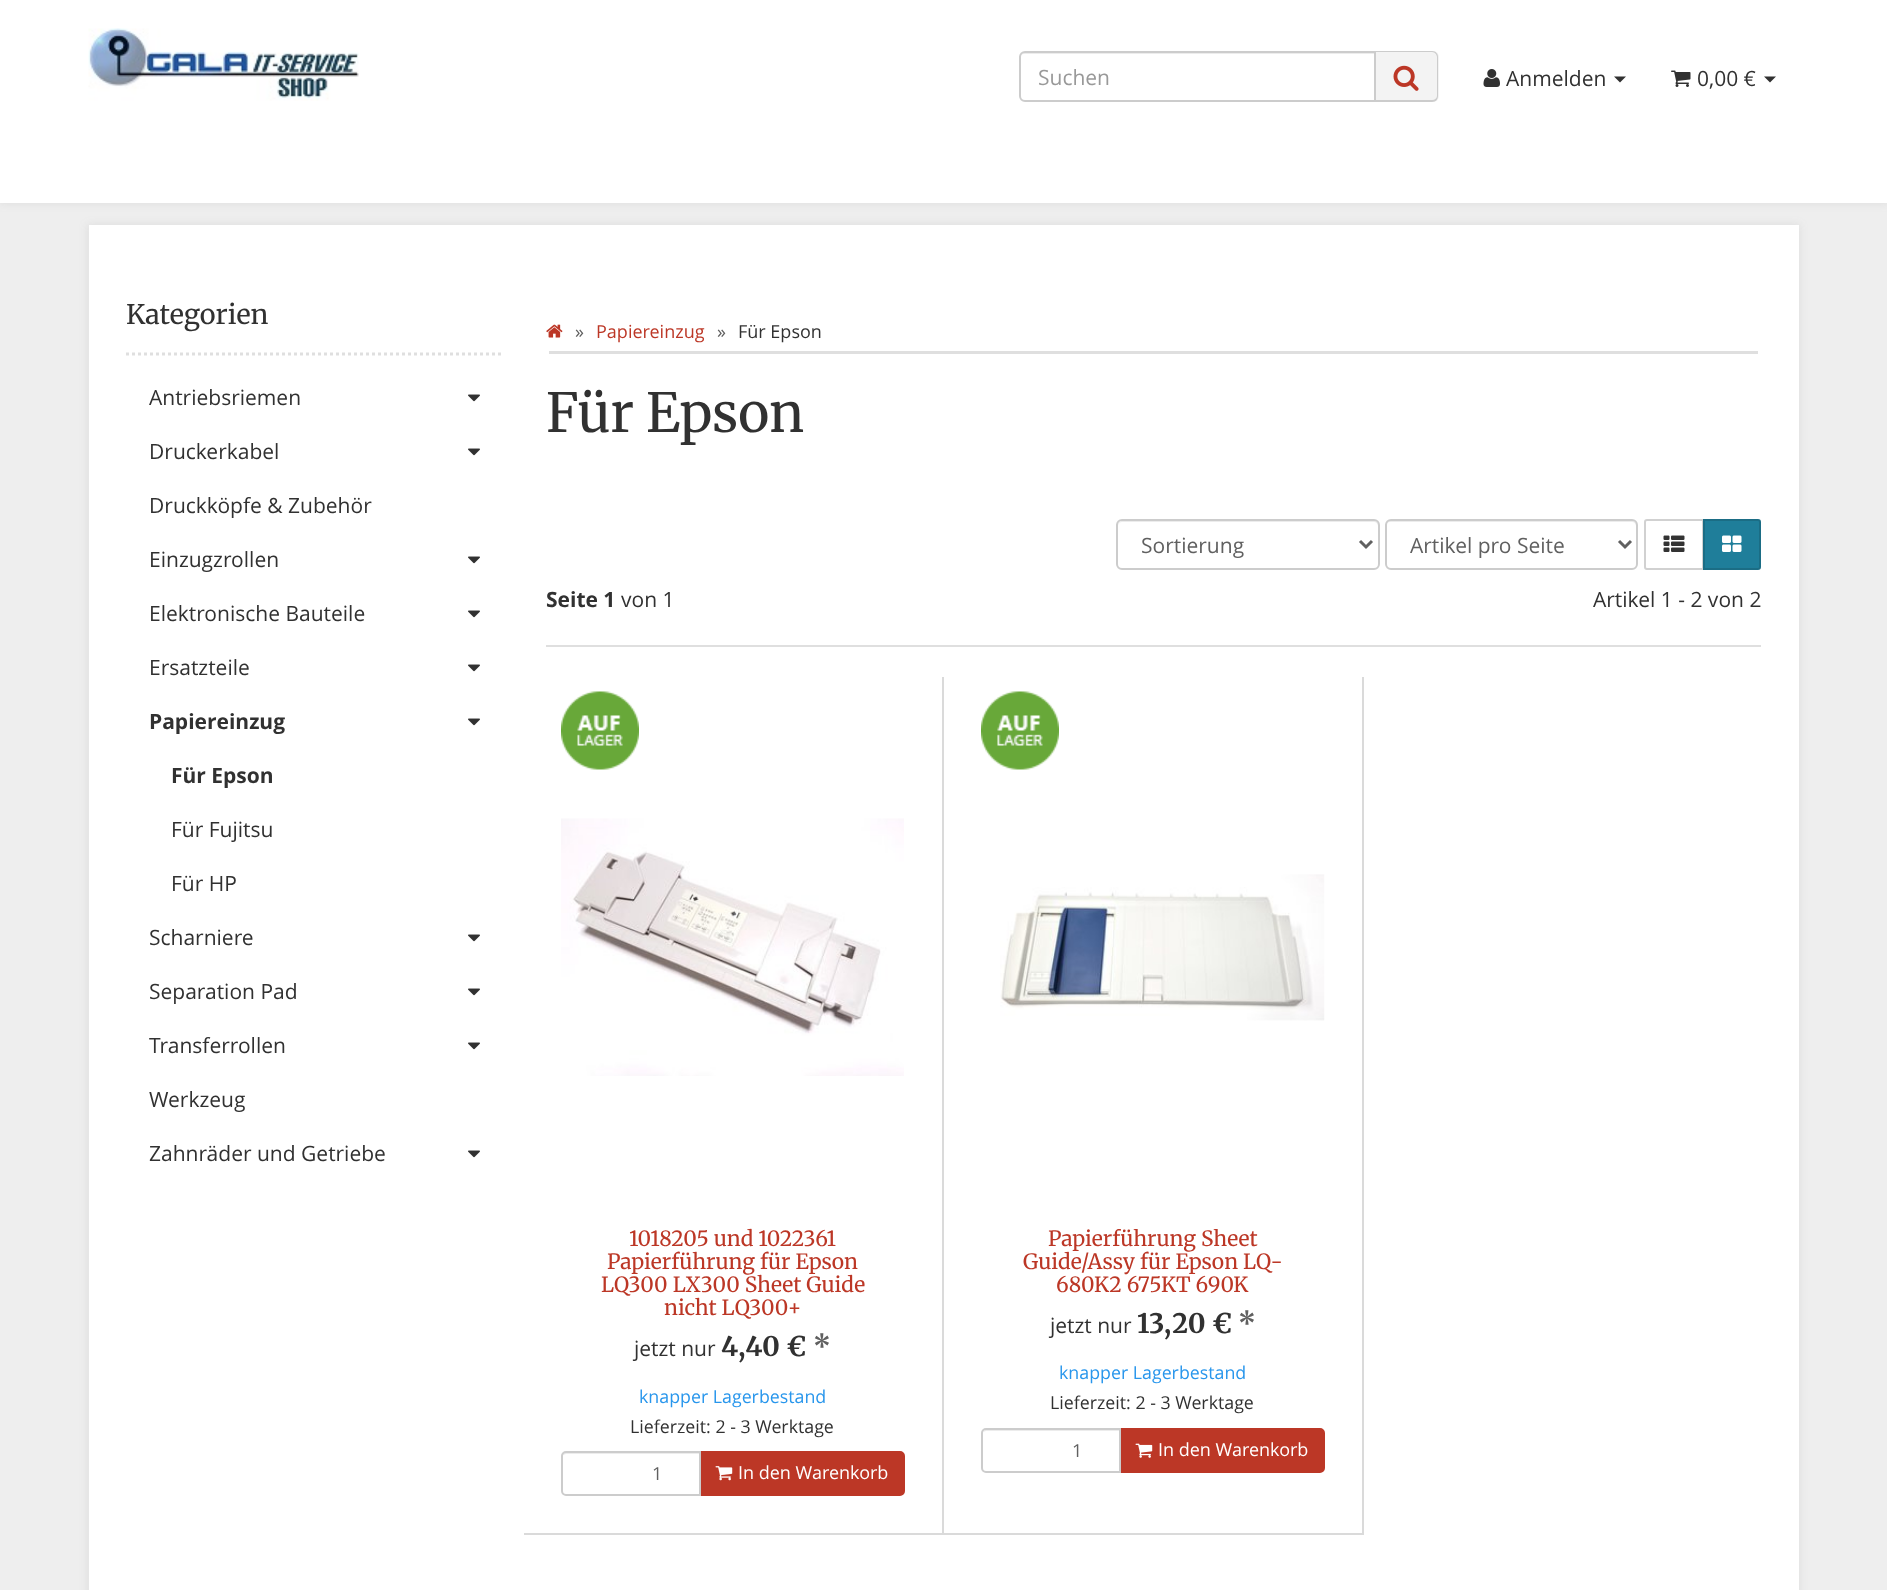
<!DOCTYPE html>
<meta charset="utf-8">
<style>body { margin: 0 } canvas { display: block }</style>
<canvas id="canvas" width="1887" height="1590"></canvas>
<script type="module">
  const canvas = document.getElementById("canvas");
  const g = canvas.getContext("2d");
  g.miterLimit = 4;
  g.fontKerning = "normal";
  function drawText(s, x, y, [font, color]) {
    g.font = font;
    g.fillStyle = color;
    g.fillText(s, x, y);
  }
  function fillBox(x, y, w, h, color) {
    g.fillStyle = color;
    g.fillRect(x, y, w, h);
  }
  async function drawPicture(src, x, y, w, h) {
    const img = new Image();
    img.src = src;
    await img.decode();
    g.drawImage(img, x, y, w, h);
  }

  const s1 = ["21px Open Sans", "#999999"];
  const s2 = ["21px Open Sans", "#313131"];
  const s3 = ["27px 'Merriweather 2'", "#313131"];
  const s4 = ["bold 21px Open Sans", "#313131"];
  const s5 = ["18px Open Sans", "#606060"];
  const s6 = ["18px Open Sans", "#BC3726"];
  const s7 = ["18px Open Sans", "#313131"];
  const s8 = ["54px Merriweather", "#313131"];
  const s9 = ["21px Open Sans", "#606060"];
  const s10 = ["21px 'Merriweather 2'", "#BC3726"];
  const s11 = ["bold 27px Merriweather", "#313131"];
  const s12 = ["bold 27px Merriweather", "#606060"];
  const s13 = ["17.8px Open Sans", "#2896EC"];
  const s14 = ["17.8px Open Sans", "#313131"];
  const s15 = ["18px Open Sans", "#FFFFFF"];

  fillBox(0, 0, 1887, 1590, "#EEEEEE");
  g.fillStyle = "rgba(106, 106, 106, 0.1)";
  g.filter = "blur(4px)";
  g.beginPath();
  g.rect(-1, -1, 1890, 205);
  g.fill();
  g.filter = "none";
  fillBox(0, 0, 1887, 203, "#FFFFFF");
  await drawPicture("pic1.png", 88, 28, 271, 73);
  g.fillStyle = "#ECECEC";
  g.beginPath();
  g.moveTo(1024, 54);
  g.lineTo(1374, 54);
  g.lineTo(1374, 53);
  g.lineTo(1025, 53);
  g.bezierCurveTo(1022, 53, 1020, 55, 1020, 58);
  g.bezierCurveTo(1020, 56, 1022, 54, 1024, 54);
  g.closePath();
  g.fill();
  g.beginPath();
  g.roundRect(1020, 52, 355, 49, [5, 0, 0, 5]);
  g.strokeStyle = "#CCCCCC";
  g.lineWidth = 2;
  g.stroke();
  drawText("Suchen", 1038, 85, s1);
  g.fillStyle = "#F3F3F3";
  g.beginPath();
  g.roundRect(1376, 51, 63, 51, [0, 6, 6, 0]);
  g.fill();
  g.fillStyle = "#CCCCCC";
  g.beginPath();
  g.moveTo(1376, 51);
  g.lineTo(1432, 51);
  g.bezierCurveTo(1436, 51, 1438, 54, 1438, 57);
  g.lineTo(1438, 96);
  g.bezierCurveTo(1438, 99, 1436, 102, 1432, 102);
  g.lineTo(1376, 102);
  g.closePath();
  g.moveTo(1376, 52);
  g.lineTo(1432, 52);
  g.bezierCurveTo(1435, 52, 1437, 55, 1437, 57);
  g.lineTo(1437, 96);
  g.bezierCurveTo(1437, 98, 1435, 100, 1432, 100);
  g.lineTo(1376, 100);
  g.closePath();
  g.fill("evenodd");
  await drawPicture("pic2.png", 1393, 65, 26, 26);
  await drawPicture("pic3.png", 1483, 69, 17, 18);
  drawText("Anmelden", 1506, 86, s2);
  g.beginPath();
  g.moveTo(1614, 76.5);
  g.lineTo(1626, 76.5);
  g.lineTo(1620, 82.5);
  g.closePath();
  g.fill();
  await drawPicture("pic4.png", 1671, 70, 20, 17);
  drawText("0,00 €", 1697, 86, s2);
  g.beginPath();
  g.moveTo(1764, 76.5);
  g.lineTo(1776, 76.5);
  g.lineTo(1770, 82.5);
  g.closePath();
  g.fill();
  g.fillStyle = "rgba(106, 106, 106, 0.1)";
  g.filter = "blur(4px)";
  g.beginPath();
  g.rect(87, 224, 1713, 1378);
  g.fill();
  g.filter = "none";
  fillBox(89, 225, 1710, 1365, "#FFFFFF");
  g.beginPath();
  g.moveTo(126, 354);
  g.lineTo(501, 354);
  g.strokeStyle = "#DFDFDF";
  g.lineWidth = 3;
  g.setLineDash([3, 3]);
  g.stroke();
  drawText("Kategorien", 126, 324, s3);
  drawText("Antriebsriemen", 149, 405, s2);
  await drawPicture("pic5.png", 468, 394, 12, 8);
  drawText("Druckerkabel", 149, 459, s2);
  await drawPicture("pic5.png", 468, 448, 12, 8);
  drawText("Druckköpfe & Zubehör", 149, 513, s2);
  drawText("Einzugzrollen", 149, 567, s2);
  await drawPicture("pic5.png", 468, 556, 12, 8);
  drawText("Elektronische Bauteile", 149, 621, s2);
  await drawPicture("pic5.png", 468, 610, 12, 8);
  drawText("Ersatzteile", 149, 675, s2);
  await drawPicture("pic5.png", 468, 664, 12, 8);
  drawText("Papiereinzug", 149, 729, s4);
  await drawPicture("pic5.png", 468, 718, 12, 8);
  drawText("Für Epson", 171, 783, s4);
  drawText("Für Fujitsu", 171, 837, s2);
  drawText("Für HP", 171, 891, s2);
  drawText("Scharniere", 149, 945, s2);
  await drawPicture("pic5.png", 468, 934, 12, 8);
  drawText("Separation Pad", 149, 999, s2);
  await drawPicture("pic5.png", 468, 988, 12, 8);
  drawText("Transferrollen", 149, 1053, s2);
  await drawPicture("pic5.png", 468, 1042, 12, 8);
  drawText("Werkzeug", 149, 1107, s2);
  drawText("Zahnräder und Getriebe", 149, 1161, s2);
  await drawPicture("pic5.png", 468, 1150, 12, 8);
  fillBox(549, 351, 1209, 3, "#DFDFDF");
  await drawPicture("pic6.png", 546, 324, 17, 14);
  drawText("»", 575, 338, s5);
  drawText("Papiereinzug", 596, 338, s6);
  drawText("»", 717, 338, s5);
  drawText("Für Epson", 738, 338, s7);
  drawText("Für Epson", 546, 432, s8);
  g.fillStyle = "#ECECEC";
  g.beginPath();
  g.moveTo(1122, 522);
  g.lineTo(1374, 522);
  g.bezierCurveTo(1376, 522, 1378, 524, 1378, 526);
  g.lineTo(1378, 567);
  g.bezierCurveTo(1379, 566, 1379, 565, 1379, 564);
  g.lineTo(1379, 526);
  g.bezierCurveTo(1379, 523, 1377, 521, 1374, 521);
  g.lineTo(1123, 521);
  g.bezierCurveTo(1120, 521, 1118, 523, 1118, 526);
  g.bezierCurveTo(1118, 524, 1120, 522, 1122, 522);
  g.closePath();
  g.fill();
  g.beginPath();
  g.roundRect(1117, 520, 262, 49, 5);
  g.strokeStyle = "#CCCCCC";
  g.lineWidth = 2;
  g.setLineDash([]);
  g.stroke();
  g.beginPath();
  g.moveTo(1360, 541);
  g.lineTo(1366, 547);
  g.lineTo(1372, 541);
  g.strokeStyle = "#606060";
  g.lineWidth = 3;
  g.stroke();
  drawText("Sortierung", 1141, 553, s9);
  g.fillStyle = "#ECECEC";
  g.beginPath();
  g.moveTo(1390, 522);
  g.lineTo(1632, 522);
  g.bezierCurveTo(1634, 522, 1636, 524, 1636, 526);
  g.lineTo(1636, 567);
  g.bezierCurveTo(1637, 566, 1637, 565, 1637, 564);
  g.lineTo(1637, 526);
  g.bezierCurveTo(1637, 523, 1635, 521, 1632, 521);
  g.lineTo(1391, 521);
  g.bezierCurveTo(1388, 521, 1386, 523, 1386, 526);
  g.bezierCurveTo(1386, 524, 1388, 522, 1390, 522);
  g.closePath();
  g.fill();
  g.beginPath();
  g.roundRect(1386, 520, 251, 49, 5);
  g.strokeStyle = "#CCCCCC";
  g.lineWidth = 2;
  g.stroke();
  g.beginPath();
  g.moveTo(1619, 541);
  g.lineTo(1625, 547);
  g.lineTo(1631, 541);
  g.strokeStyle = "#606060";
  g.lineWidth = 3;
  g.stroke();
  drawText("Artikel pro Seite", 1410, 553, s9);
  g.beginPath();
  g.roundRect(1645, 520, 58, 49, [2, 0, 0, 2]);
  g.strokeStyle = "#D1D1D1";
  g.lineWidth = 2;
  g.stroke();
  await drawPicture("pic7.png", 1663, 535, 22, 17);
  g.fillStyle = "#1F7E9A";
  g.beginPath();
  g.roundRect(1704, 520, 56, 49, [0, 2, 2, 0]);
  g.fill();
  g.strokeStyle = "#1B6D85";
  g.stroke();
  await drawPicture("pic8.png", 1722, 535, 20, 17);
  drawText("Seite 1", 546, 607, s4);
  drawText("von 1", 621, 607, s2);
  drawText("Artikel 1 - 2 von 2", 1593, 607, s2);
  fillBox(546, 645, 1215, 2, "#DFDFDF");
  fillBox(942, 677, 2, 858, "#DADADA");
  fillBox(524, 1533, 420, 2, "#DADADA");
  await drawPicture("pic9.png", 561, 691, 78, 79);
  await drawPicture("pic10.png", 561, 818, 343, 258);
  drawText("1018205 und 1022361", 629, 1246, s10);
  drawText("Papierführung für Epson", 607, 1269, s10);
  drawText("LQ300 LX300 Sheet Guide", 601, 1292, s10);
  drawText("nicht LQ300+", 664, 1315, s10);
  drawText("jetzt nur", 634, 1356, s2);
  drawText("4,40 €", 721, 1356, s11);
  drawText("*", 813, 1356, s12);
  drawText("knapper Lagerbestand", 639, 1403, s13);
  drawText("Lieferzeit: 2 - 3 Werktage", 630, 1433, s14);
  g.fillStyle = "#BC3726";
  g.beginPath();
  g.roundRect(700, 1452, 204, 43, [0, 4, 4, 0]);
  g.fill();
  g.strokeStyle = "#BC3726";
  g.stroke();
  g.fillStyle = "#FFFFFF";
  g.beginPath();
  g.roundRect(561, 1451, 140, 45, [5, 0, 0, 5]);
  g.fill();
  g.fillStyle = "#ECECEC";
  g.beginPath();
  g.moveTo(566, 1454);
  g.lineTo(699, 1454);
  g.lineTo(699, 1452);
  g.lineTo(566, 1452);
  g.bezierCurveTo(564, 1452, 563, 1453, 563, 1455);
  g.closePath();
  g.fill();
  g.beginPath();
  g.roundRect(562, 1452, 138, 43, [4, 0, 0, 4]);
  g.strokeStyle = "#CCCCCC";
  g.stroke();
  drawText("1", 652, 1480, s5);
  await drawPicture("pic11.png", 715, 1466, 18, 15);
  drawText("In den Warenkorb", 738, 1479, s15);
  fillBox(1362, 677, 2, 858, "#DADADA");
  fillBox(944, 1533, 420, 2, "#DADADA");
  await drawPicture("pic12.png", 981, 691, 78, 79);
  await drawPicture("pic13.png", 1000, 874, 325, 147);
  g.save();
  g.beginPath();
  g.rect(995, 1229, 316, 76);
  g.clip();
  drawText("Papierführung Sheet", 1048, 1246, s10);
  g.restore();
  drawText("Guide/Assy für Epson LQ-", 1023, 1269, s10);
  drawText("680K2 675KT 690K", 1056, 1292, s10);
  drawText("jetzt nur", 1050, 1333, s2);
  drawText("13,20 €", 1137, 1333, s11);
  drawText("*", 1238, 1333, s12);
  drawText("knapper Lagerbestand", 1059, 1379, s13);
  drawText("Lieferzeit: 2 - 3 Werktage", 1050, 1409, s14);
  g.fillStyle = "#BC3726";
  g.beginPath();
  g.roundRect(1120, 1429, 204, 43, [0, 4, 4, 0]);
  g.fill();
  g.strokeStyle = "#BC3726";
  g.stroke();
  g.fillStyle = "#FFFFFF";
  g.beginPath();
  g.roundRect(981, 1428, 140, 45, [5, 0, 0, 5]);
  g.fill();
  g.fillStyle = "#ECECEC";
  g.beginPath();
  g.moveTo(986, 1431);
  g.lineTo(1119, 1431);
  g.lineTo(1119, 1430);
  g.lineTo(985, 1430);
  g.lineTo(983, 1432);
  g.closePath();
  g.fill();
  g.beginPath();
  g.roundRect(982, 1429, 138, 43, [4, 0, 0, 4]);
  g.strokeStyle = "#CCCCCC";
  g.stroke();
  drawText("1", 1072, 1457, s5);
  await drawPicture("pic14.png", 1135, 1443, 18, 15);
  drawText("In den Warenkorb", 1158, 1456, s15);
</script>
